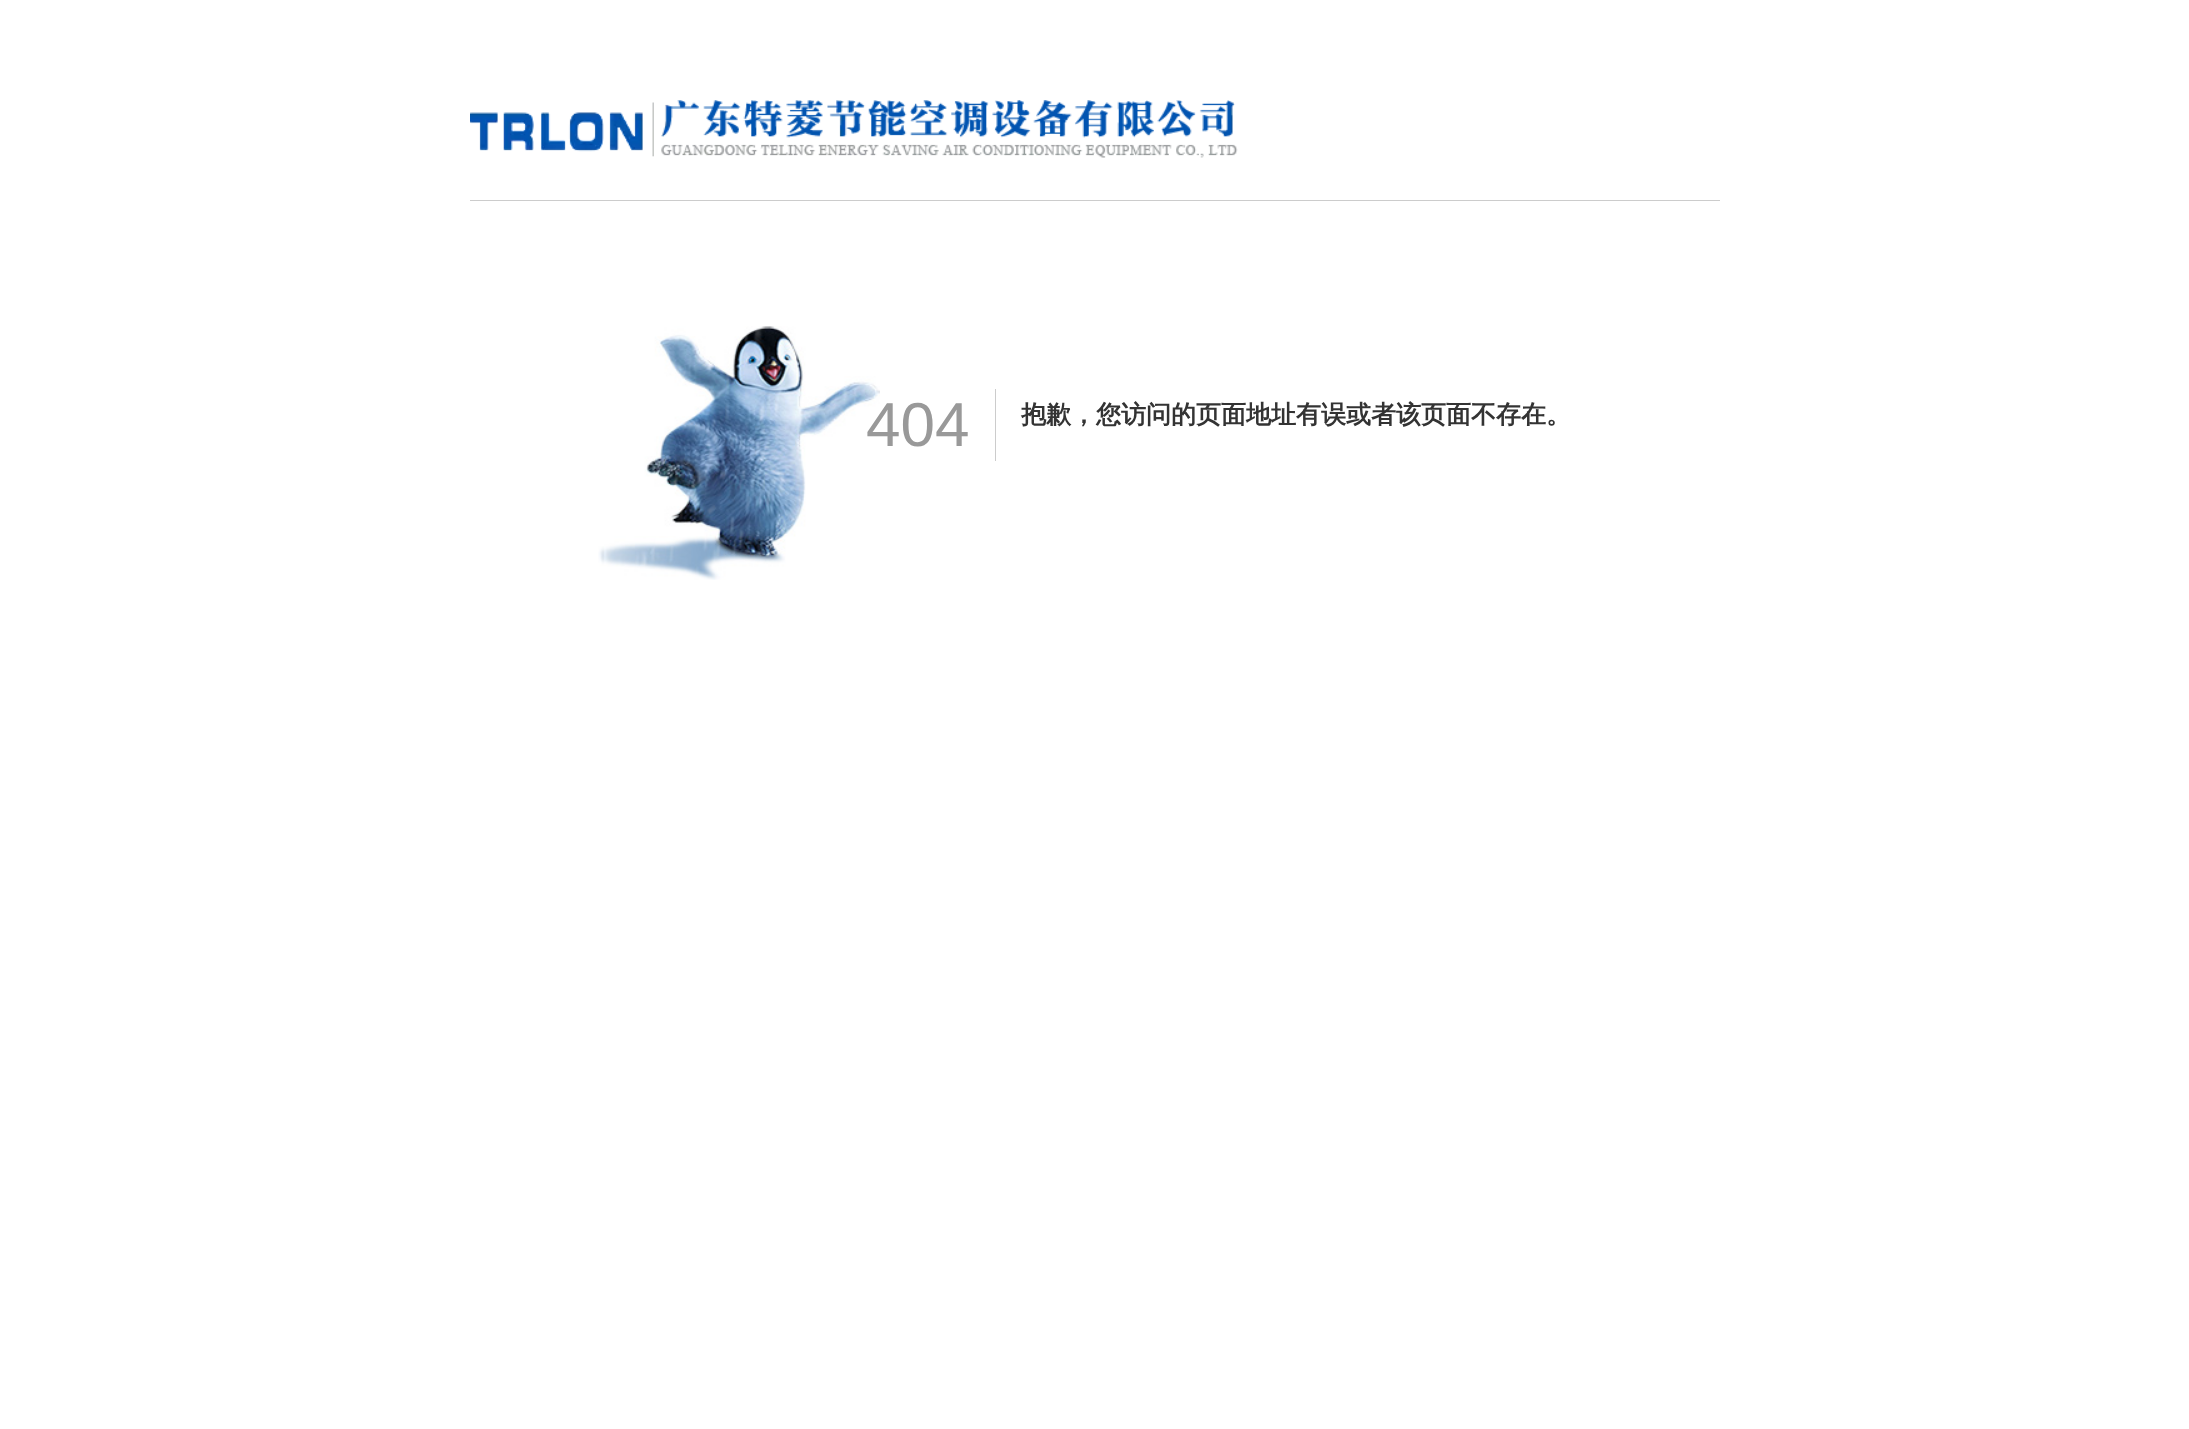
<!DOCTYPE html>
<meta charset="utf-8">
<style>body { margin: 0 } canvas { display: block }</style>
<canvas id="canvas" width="2189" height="1429"></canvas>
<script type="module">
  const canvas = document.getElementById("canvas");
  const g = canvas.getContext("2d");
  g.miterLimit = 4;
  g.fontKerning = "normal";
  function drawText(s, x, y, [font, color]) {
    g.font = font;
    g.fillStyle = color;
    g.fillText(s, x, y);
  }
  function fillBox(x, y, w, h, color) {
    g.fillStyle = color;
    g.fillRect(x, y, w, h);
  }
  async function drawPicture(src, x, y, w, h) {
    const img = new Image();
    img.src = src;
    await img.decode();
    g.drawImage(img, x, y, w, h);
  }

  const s1 = ["62px Liberation Sans", "#999999"];
  const s2 = ["bold 25px WenQuanYi Zen Hei", "#333333"];

  fillBox(0, 0, 2189, 1429, "#FFFFFF");
  fillBox(470, 200, 1250, 1, "#CCCCCC");
  await drawPicture("pic1.png", 470, 100, 768, 58);
  await drawPicture("pic2.png", 598, 326, 282, 254);
  fillBox(995, 389, 1, 72, "#CCCCCC");
  drawText("404", 866, 446, s1);
  drawText("抱歉，您访问的页面地址有误或者该页面不存在。", 1021, 423, s2);
</script>
